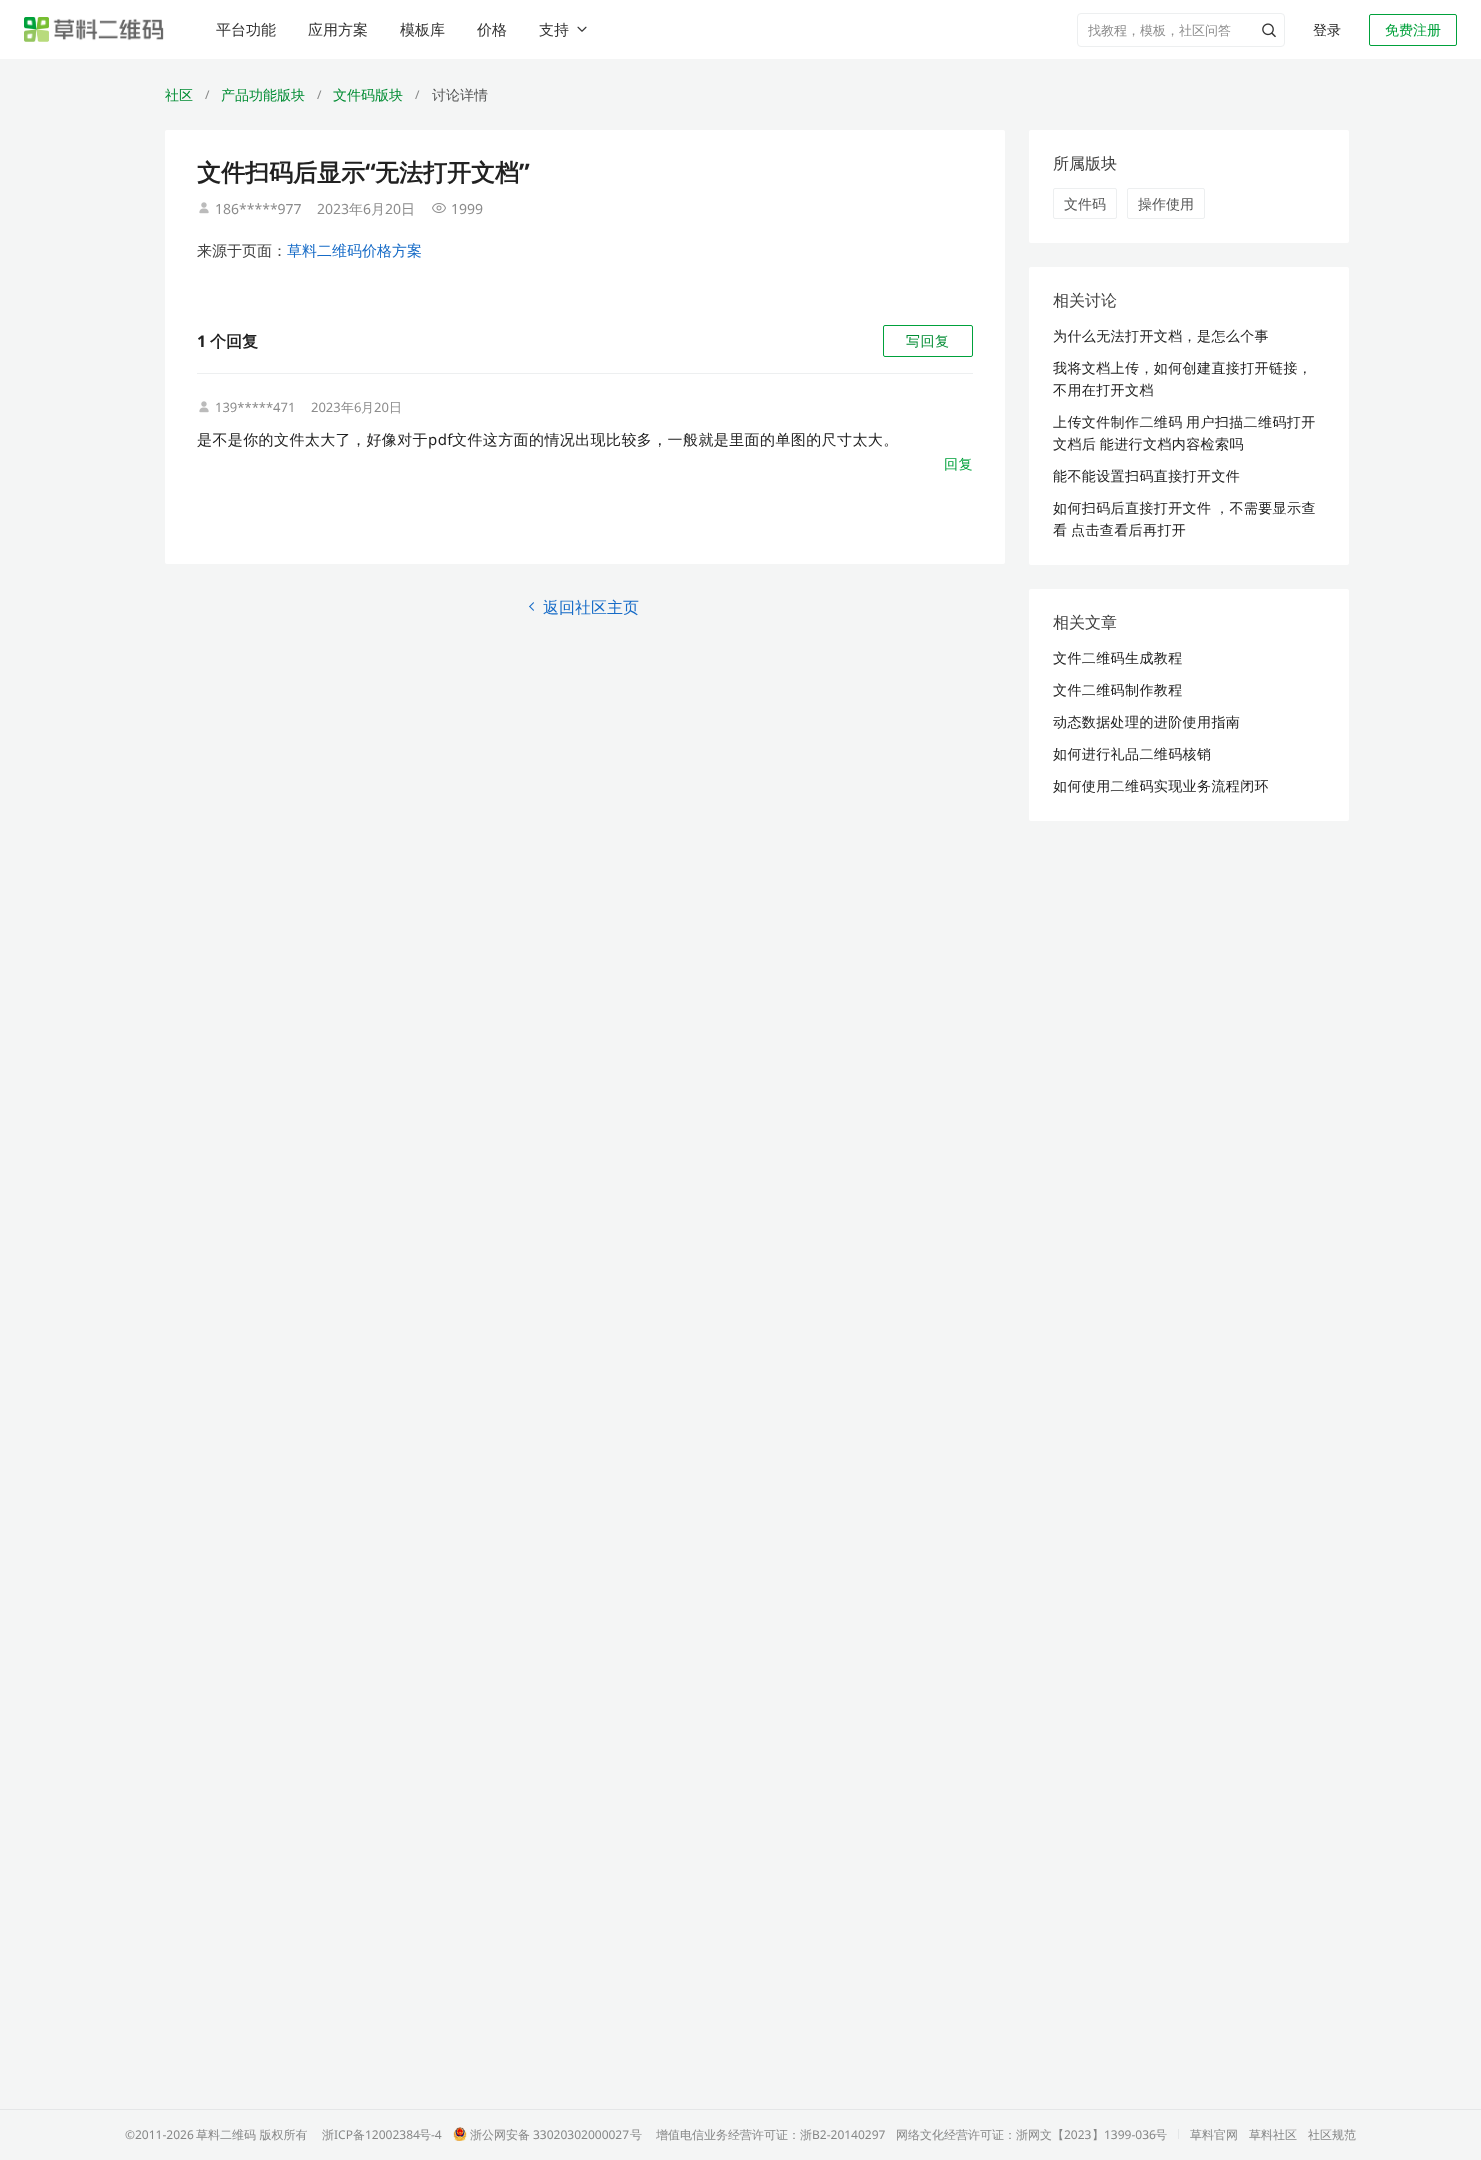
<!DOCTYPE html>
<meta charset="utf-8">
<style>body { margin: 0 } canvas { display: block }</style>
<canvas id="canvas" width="1481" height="2160"></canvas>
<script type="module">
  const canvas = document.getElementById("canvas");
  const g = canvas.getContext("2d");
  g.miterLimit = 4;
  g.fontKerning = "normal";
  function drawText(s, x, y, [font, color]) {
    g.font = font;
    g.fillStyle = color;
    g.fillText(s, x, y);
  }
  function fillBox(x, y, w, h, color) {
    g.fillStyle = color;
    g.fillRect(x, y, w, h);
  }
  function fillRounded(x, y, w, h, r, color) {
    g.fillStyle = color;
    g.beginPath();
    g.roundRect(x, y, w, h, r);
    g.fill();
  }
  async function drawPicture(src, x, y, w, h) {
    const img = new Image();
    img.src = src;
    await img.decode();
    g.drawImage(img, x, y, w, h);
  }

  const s1 = ["500 15px WenQuanYi Zen Hei", "#333333"];
  const s2 = ["500 13px WenQuanYi Zen Hei", "#8C8C8C"];
  const s3 = ["500 14px WenQuanYi Zen Hei", "#212121"];
  const s4 = ["500 14px WenQuanYi Zen Hei", "#00A13B"];
  const s5 = ["500 14px WenQuanYi Zen Hei", "#008C33"];
  const s6 = ["12px Noto Sans", "#868787"];
  const s7 = ["500 14px WenQuanYi Zen Hei", "#555656"];
  const s8 = ["bold 24px WenQuanYi Zen Hei", "#212121"];
  const s9 = ["bold 24px Noto Sans", "#212121"];
  const s10 = ["14px Noto Sans", "#8C8C8C"];
  const s11 = ["500 14px WenQuanYi Zen Hei", "#8C8C8C"];
  const s12 = ["500 15px WenQuanYi Zen Hei", "#404040"];
  const s13 = ["500 15px WenQuanYi Zen Hei", "#166BC7"];
  const s14 = ["bold 16px Noto Sans", "#212121"];
  const s15 = ["bold 16px WenQuanYi Zen Hei", "#212121"];
  const s16 = ["13px Noto Sans", "#8C8C8C"];
  const s17 = ["500 15px WenQuanYi Zen Hei", "#212121"];
  const s18 = ["15px Noto Sans", "#212121"];
  const s19 = ["500 16px WenQuanYi Zen Hei", "#166BC7"];
  const s20 = ["500 16px WenQuanYi Zen Hei", "#404040"];
  const s21 = ["500 12px WenQuanYi Zen Hei", "#868787"];

  fillBox(0, 0, 1481, 2160, "#F4F5F5");
  fillBox(0, 0, 1481, 59, "#FFFFFF");
  await drawPicture("pic1.png", 24, 17, 140, 25);
  drawText("平台功能", 216, 35, s1);
  drawText("应用方案", 308, 35, s1);
  drawText("模板库", 400, 35, s1);
  drawText("价格", 477, 35, s1);
  drawText("支持", 539, 35, s1);
  await drawPicture("pic2.png", 577, 26, 10, 6);
  g.beginPath();
  g.roundRect(1077.5, 13.5, 207, 33, 3.5);
  g.strokeStyle = "#EDEFF0";
  g.stroke();
  drawText("找教程，模板，社区问答", 1088, 35, s2);
  await drawPicture("pic3.png", 1262, 23, 14, 15);
  drawText("登录", 1313, 35, s3);
  g.beginPath();
  g.roundRect(1369.5, 14.5, 87, 31, 1.5);
  g.strokeStyle = "#00A13B";
  g.stroke();
  drawText("免费注册", 1385, 35, s4);
  drawText("社区", 165, 100, s5);
  drawText("/", 205, 99, s6);
  drawText("产品功能版块", 221, 100, s5);
  drawText("/", 317, 99, s6);
  drawText("文件码版块", 333, 100, s5);
  drawText("/", 415, 99, s6);
  drawText("讨论详情", 432, 100, s7);
  g.fillStyle = "#FFFFFF";
  g.beginPath();
  g.roundRect(165, 130, 840, 163, [2, 2, 0, 0]);
  g.fill();
  drawText("文件扫码后显示", 197, 181, s8);
  drawText("“", 365, 181, s9);
  drawText("无法打开文档", 375, 181, s8);
  drawText("”", 519, 181, s9);
  await drawPicture("pic4.png", 199, 202, 10, 12);
  drawText("186*****977", 215, 214, s10);
  drawText("2023", 317, 214, s10);
  drawText("年", 349, 214, s11);
  drawText("6", 363, 214, s10);
  drawText("月", 371, 214, s11);
  drawText("20", 385, 214, s10);
  drawText("日", 401, 214, s11);
  await drawPicture("pic5.png", 432, 203, 14, 10);
  drawText("1999", 451, 214, s10);
  drawText("来源于页面：", 197, 256, s12);
  drawText("草料二维码价格方案", 287, 256, s13);
  g.fillStyle = "#FFFFFF";
  g.beginPath();
  g.roundRect(165, 293, 840, 271, [0, 0, 2, 2]);
  g.fill();
  drawText("1", 197, 347, s14);
  drawText("个回复", 210, 347, s15);
  g.beginPath();
  g.roundRect(883.5, 325.5, 89, 31, 1.5);
  g.stroke();
  g.letterSpacing = "0.5px";
  drawText("写回复", 906, 346, s5);
  fillBox(197, 373, 776, 1, "#EDEFF0");
  await drawPicture("pic4.png", 199, 401, 10, 12);
  g.letterSpacing = "0px";
  drawText("139*****471", 215, 412, s16);
  drawText("2023", 311, 412, s16);
  drawText("年", 341, 412, s2);
  drawText("6", 354, 412, s16);
  drawText("月", 361, 412, s2);
  drawText("20", 374, 412, s16);
  drawText("日", 389, 412, s2);
  g.letterSpacing = "0.4px";
  drawText("是不是你的文件太大了，好像对于", 197, 445, s17);
  drawText("pdf", 428, 445, s18);
  drawText("文件这方面的情况出现比较多，一般就是里面的单图的尺寸太大。", 452, 445, s17);
  drawText("回复", 944, 469, s4);
  g.fillStyle = "#166BC7";
  g.beginPath();
  g.moveTo(530, 606);
  g.lineTo(534, 610);
  g.lineTo(533.5, 611);
  g.lineTo(529, 606.5);
  g.closePath();
  g.fill();
  g.beginPath();
  g.moveTo(533.5, 602);
  g.lineTo(534, 603);
  g.lineTo(530, 607);
  g.lineTo(529, 606.5);
  g.closePath();
  g.fill();
  g.letterSpacing = "0px";
  drawText("返回社区主页", 543, 613, s19);
  fillRounded(1029, 130, 320, 113, 2, "#FFFFFF");
  drawText("所属版块", 1053, 169, s20);
  g.beginPath();
  g.roundRect(1053.5, 188.5, 63, 30, 1.5);
  g.strokeStyle = "#EDEFF0";
  g.stroke();
  drawText("文件码", 1064, 209, s7);
  g.beginPath();
  g.roundRect(1127.5, 188.5, 77, 30, 1.5);
  g.stroke();
  drawText("操作使用", 1138, 209, s7);
  fillRounded(1029, 267, 320, 298, 2, "#FFFFFF");
  drawText("相关讨论", 1053, 306, s20);
  g.letterSpacing = "0.4px";
  drawText("为什么无法打开文档，是怎么个事", 1053, 341, s3);
  drawText("我将文档上传，如何创建直接打开链接，", 1053, 373, s3);
  drawText("不用在打开文档", 1053, 395, s3);
  drawText("上传文件制作二维码", 1053, 427, s3);
  drawText("用户扫描二维码打开", 1186, 427, s3);
  g.wordSpacing = "-1px";
  drawText("文档后 能进行文档内容检索吗", 1053, 449, s3);
  g.wordSpacing = "0px";
  drawText("能不能设置扫码直接打开文件", 1053, 481, s3);
  g.wordSpacing = "-1px";
  drawText("如何扫码后直接打开文件 ，不需要显示查", 1053, 513, s3);
  drawText("看 点击查看后再打开", 1053, 535, s3);
  fillRounded(1029, 589, 320, 232, 2, "#FFFFFF");
  g.letterSpacing = "0px";
  g.wordSpacing = "0px";
  drawText("相关文章", 1053, 628, s20);
  g.letterSpacing = "0.4px";
  drawText("文件二维码生成教程", 1053, 663, s3);
  drawText("文件二维码制作教程", 1053, 695, s3);
  drawText("动态数据处理的进阶使用指南", 1053, 727, s3);
  drawText("如何进行礼品二维码核销", 1053, 759, s3);
  drawText("如何使用二维码实现业务流程闭环", 1053, 791, s3);
  fillBox(0, 2109, 1481, 1, "#E4E6E7");
  g.letterSpacing = "0px";
  drawText("©2011-2026", 125, 2139, s6);
  drawText("草料二维码 版权所有", 196, 2139, s21);
  drawText("浙", 322, 2139, s21);
  drawText("ICP", 334, 2139, s6);
  drawText("备", 353, 2139, s21);
  drawText("12002384", 365, 2139, s6);
  drawText("号", 419, 2139, s21);
  drawText("-4", 431, 2139, s6);
  await drawPicture("pic6.png", 453, 2127, 14, 14);
  drawText("浙公网安备", 470, 2139, s21);
  drawText("33020302000027", 533, 2139, s6);
  drawText("号", 630, 2139, s21);
  drawText("增值电信业务经营许可证：浙", 656, 2139, s21);
  drawText("B2-20140297", 812, 2139, s6);
  drawText("网络文化经营许可证：浙网文【", 896, 2139, s21);
  drawText("2023", 1064, 2139, s6);
  drawText("】", 1092, 2139, s21);
  drawText("1399-036", 1104, 2139, s6);
  drawText("号", 1155, 2139, s21);
  fillBox(1178, 2129, 1, 10, "#E4E6E7");
  drawText("草料官网", 1190, 2139, s21);
  drawText("草料社区", 1249, 2139, s21);
  drawText("社区规范", 1308, 2139, s21);
</script>
